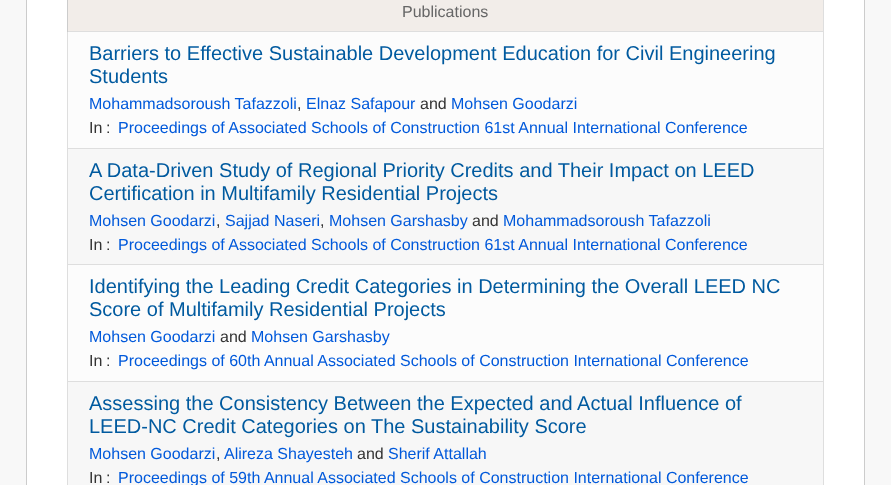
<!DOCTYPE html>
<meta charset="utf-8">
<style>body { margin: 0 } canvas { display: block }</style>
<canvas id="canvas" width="891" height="485"></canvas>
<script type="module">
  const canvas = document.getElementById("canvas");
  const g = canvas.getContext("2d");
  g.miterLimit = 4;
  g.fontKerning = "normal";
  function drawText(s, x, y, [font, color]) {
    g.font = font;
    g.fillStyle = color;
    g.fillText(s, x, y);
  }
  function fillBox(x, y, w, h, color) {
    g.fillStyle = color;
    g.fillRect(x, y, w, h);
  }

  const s1 = ["16px Liberation Sans", "#666666"];
  const s2 = ["20px Liberation Sans", "#005A9F"];
  const s3 = ["16px Liberation Sans", "#0059DB"];
  const s4 = ["16px Liberation Sans", "#333333"];

  fillBox(0, 0, 891, 485, "#F8F8F8");
  g.fillStyle = "#FFFFFF";
  g.beginPath();
  g.rect(26.5, -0.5, 838, 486);
  g.fill();
  g.strokeStyle = "#CCCCCC";
  g.stroke();
  fillBox(823, 0, 1, 485, "#DEDEDE");
  fillBox(67, 32, 1, 453, "#DEDEDE");
  fillBox(68, 0, 755, 31, "#F2EDE9");
  fillBox(67, 31, 757, 1, "#DEDEDE");
  fillBox(67, 0, 1, 32, "#CCCCCC");
  drawText("Publications", 402, 17, s1);
  fillBox(68, 32, 755, 116, "#FCFCFC");
  fillBox(67, 148, 757, 1, "#DEDEDE");
  drawText("Barriers to Effective Sustainable Development Education for Civil Engineering", 89, 60, s2);
  drawText("Students", 89, 83, s2);
  drawText("Mohammadsoroush Tafazzoli", 89, 109, s3);
  drawText(",", 297, 109, s4);
  drawText("Elnaz Safapour", 306, 109, s3);
  drawText("and", 420, 109, s4);
  drawText("Mohsen Goodarzi", 451, 109, s3);
  drawText("In", 89, 133, s4);
  drawText(":", 106, 133, s4);
  drawText("Proceedings of Associated Schools of Construction 61st Annual International Conference", 118, 133, s3);
  fillBox(68, 149, 755, 115, "#F7F7F7");
  fillBox(67, 264, 757, 1, "#DEDEDE");
  drawText("A Data-Driven Study of Regional Priority Credits and Their Impact on LEED", 89, 177, s2);
  drawText("Certification in Multifamily Residential Projects", 89, 200, s2);
  drawText("Mohsen Goodarzi", 89, 226, s3);
  drawText(",", 216, 226, s4);
  drawText("Sajjad Naseri", 225, 226, s3);
  drawText(",", 320, 226, s4);
  drawText("Mohsen Garshasby", 329, 226, s3);
  drawText("and", 472, 226, s4);
  drawText("Mohammadsoroush Tafazzoli", 503, 226, s3);
  drawText("In", 89, 250, s4);
  drawText(":", 106, 250, s4);
  drawText("Proceedings of Associated Schools of Construction 61st Annual International Conference", 118, 250, s3);
  fillBox(68, 265, 755, 116, "#FCFCFC");
  fillBox(67, 381, 757, 1, "#DEDEDE");
  drawText("Identifying the Leading Credit Categories in Determining the Overall LEED NC", 89, 293, s2);
  drawText("Score of Multifamily Residential Projects", 89, 316, s2);
  drawText("Mohsen Goodarzi", 89, 342, s3);
  drawText("and", 220, 342, s4);
  drawText("Mohsen Garshasby", 251, 342, s3);
  drawText("In", 89, 366, s4);
  drawText(":", 106, 366, s4);
  drawText("Proceedings of 60th Annual Associated Schools of Construction International Conference", 118, 366, s3);
  fillBox(68, 382, 755, 103, "#F7F7F7");
  drawText("Assessing the Consistency Between the Expected and Actual Influence of", 89, 410, s2);
  drawText("LEED-NC Credit Categories on The Sustainability Score", 89, 433, s2);
  drawText("Mohsen Goodarzi", 89, 459, s3);
  drawText(",", 216, 459, s4);
  drawText("Alireza Shayesteh", 224, 459, s3);
  drawText("and", 357, 459, s4);
  drawText("Sherif Attallah", 388, 459, s3);
  drawText("In", 89, 483, s4);
  drawText(":", 106, 483, s4);
  drawText("Proceedings of 59th Annual Associated Schools of Construction International Conference", 118, 483, s3);
</script>
